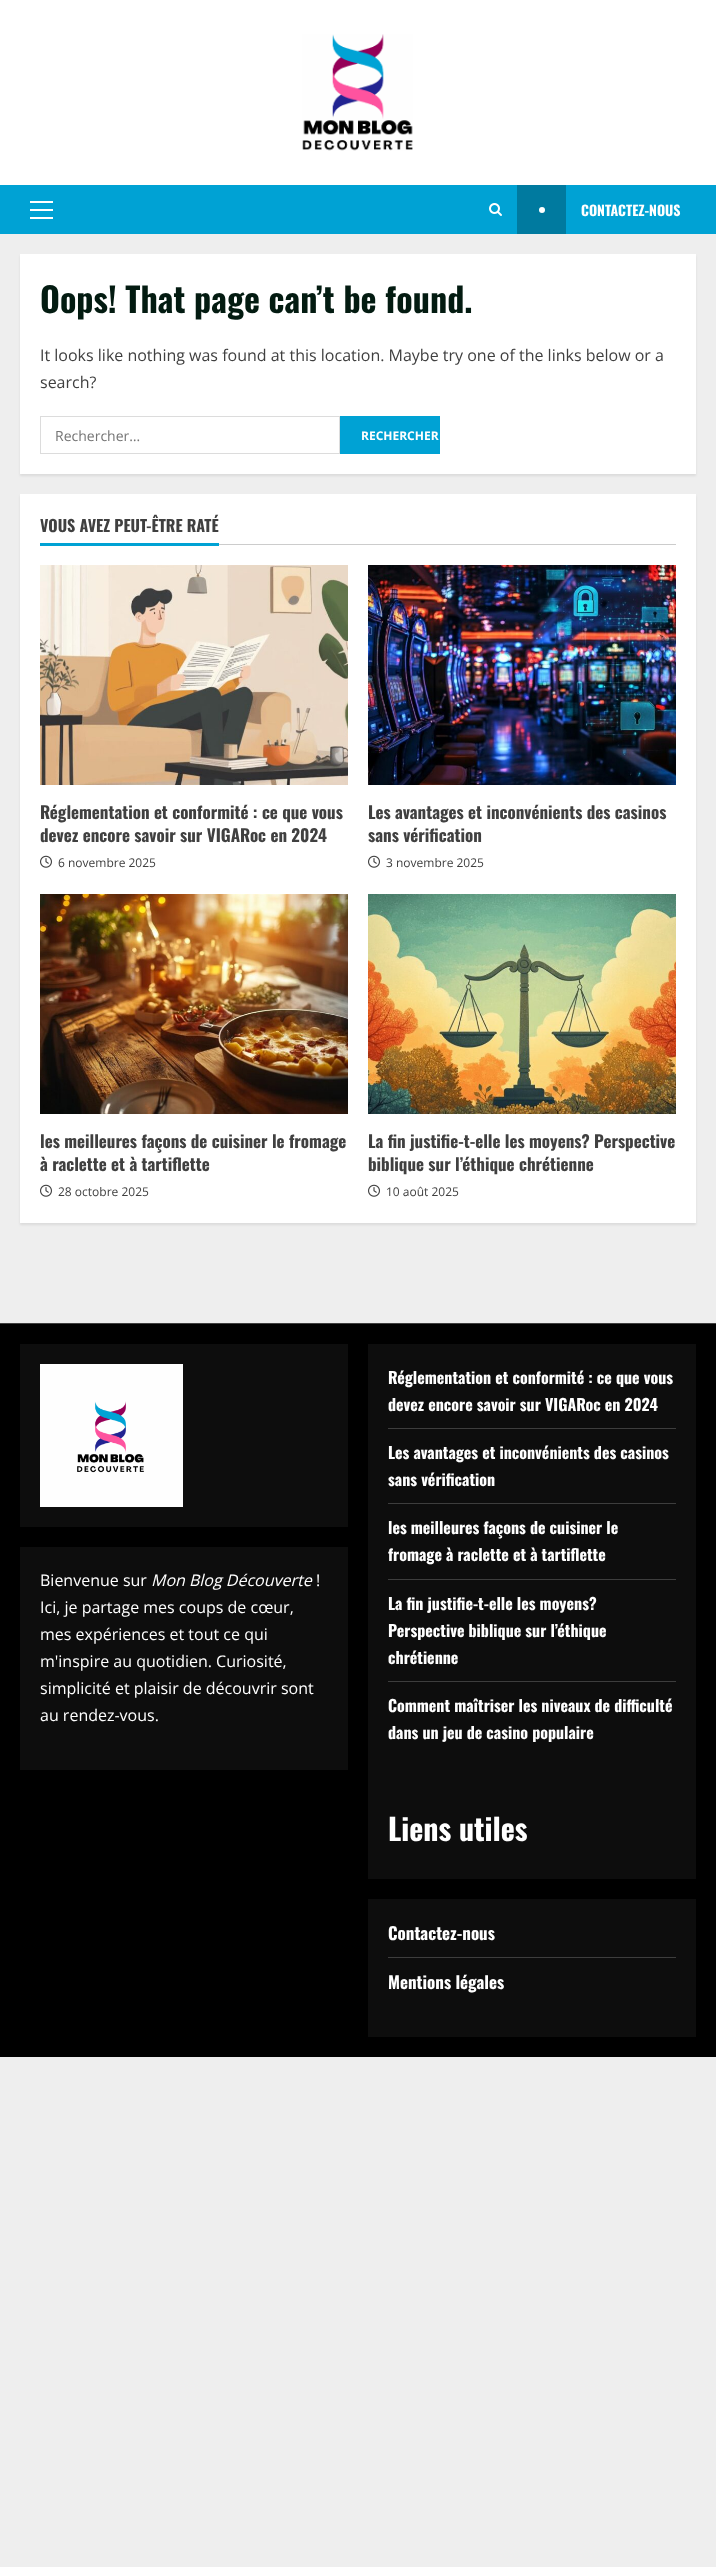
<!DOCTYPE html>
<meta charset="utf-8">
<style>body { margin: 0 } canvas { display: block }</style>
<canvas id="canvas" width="716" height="2567"></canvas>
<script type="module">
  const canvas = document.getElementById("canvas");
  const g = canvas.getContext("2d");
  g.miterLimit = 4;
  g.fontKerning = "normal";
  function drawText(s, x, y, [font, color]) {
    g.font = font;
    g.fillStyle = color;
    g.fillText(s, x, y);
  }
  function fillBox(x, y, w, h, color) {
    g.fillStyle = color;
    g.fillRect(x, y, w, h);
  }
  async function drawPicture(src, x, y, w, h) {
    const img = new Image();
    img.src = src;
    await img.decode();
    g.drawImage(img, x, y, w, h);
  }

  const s1 = ["bold 14px Oswald", "#FFFFFF"];
  const s2 = ["bold 34px Oswald", "#031B11"];
  const s3 = ["16px Open Sans", "#404040"];
  const s4 = ["14px Open Sans", "#757575"];
  const s5 = ["bold 12px Open Sans", "#FFFFFF"];
  const s6 = ["bold 16px Oswald", "#404040"];
  const s7 = ["bold 17px Oswald", "#404040"];
  const s8 = ["12px Open Sans", "#404040"];
  const s9 = ["16px Open Sans", "#FFFFFF"];
  const s10 = ["italic 16px Open Sans", "#FFFFFF"];
  const s11 = ["bold 16px Oswald", "#FFFFFF"];
  const s12 = ["bold 30px Oswald", "#FFFFFF"];
  const s13 = ["bold 17px Oswald", "#FFFFFF"];

  fillBox(0, 0, 716, 2567, "#EEEEEE");
  fillBox(0, 0, 716, 185, "#FFFFFF");
  await drawPicture("pic1.png", 302, 34, 111, 117);
  fillBox(0, 185, 716, 49, "#00A2D4");
  fillBox(30, 209, 23, 2, "#FFFFFF");
  fillBox(30, 201, 23, 2, "#FFFFFF");
  fillBox(30, 217, 23, 2, "#FFFFFF");
  await drawPicture("pic2.png", 489, 203, 13, 13);
  fillBox(517, 185, 49, 49, "#007A9F");
  g.fillStyle = "#FFFFFF";
  g.beginPath();
  g.arc(542, 210, 3, 0, Math.PI * 2);
  g.fill();
  drawText("CONTACTEZ-NOUS", 581, 216, s1);
  g.fillStyle = "rgba(0, 0, 0, 0.08)";
  g.filter = "blur(1px)";
  g.beginPath();
  g.rect(20, 256, 676, 220);
  g.fill();
  g.filter = "none";
  fillBox(20, 254, 676, 220, "#FFFFFF");
  drawText("Oops! That page can’t be found.", 40, 313, s2);
  drawText("It looks like nothing was found at this location. Maybe try one of the links below or a", 40, 361, s3);
  drawText("search?", 40, 388, s3);
  g.strokeStyle = "#DCDCDC";
  g.strokeRect(40.5, 416.5, 299, 37);
  drawText("Rechercher…", 55, 441, s4);
  fillBox(340, 416, 100, 38, "#00A2D4");
  drawText("RECHERCHER", 361, 440, s5);
  g.fillStyle = "rgba(0, 0, 0, 0.08)";
  g.filter = "blur(1px)";
  g.beginPath();
  g.rect(20, 496, 676, 729);
  g.fill();
  g.filter = "none";
  fillBox(20, 494, 676, 729, "#FFFFFF");
  fillBox(219, 544, 457, 1, "#CCCCCC");
  drawText("VOUS AVEZ PEUT-ÊTRE RATÉ", 40, 532, s6);
  fillBox(40, 543, 179, 3, "#00A2D4");
  await drawPicture("pic3.png", 40, 565, 308, 220);
  drawText("Réglementation et conformité : ce que vous", 40, 819, s7);
  drawText("devez encore savoir sur VIGARoc en 2024", 40, 842, s7);
  await drawPicture("pic4.png", 40, 855, 12, 13);
  drawText("6 novembre 2025", 58, 867, s8);
  await drawPicture("pic5.png", 368, 565, 308, 220);
  drawText("Les avantages et inconvénients des casinos", 368, 819, s7);
  drawText("sans vérification", 368, 842, s7);
  await drawPicture("pic4.png", 368, 855, 12, 13);
  drawText("3 novembre 2025", 386, 867, s8);
  await drawPicture("pic6.png", 40, 894, 308, 220);
  drawText("les meilleures façons de cuisiner le fromage", 40, 1148, s7);
  drawText("à raclette et à tartiflette", 40, 1171, s7);
  await drawPicture("pic4.png", 40, 1184, 12, 13);
  drawText("28 octobre 2025", 58, 1196, s8);
  await drawPicture("pic7.png", 368, 894, 308, 220);
  drawText("La fin justifie-t-elle les moyens? Perspective", 368, 1148, s7);
  drawText("biblique sur l’éthique chrétienne", 368, 1171, s7);
  await drawPicture("pic4.png", 368, 1184, 12, 13);
  drawText("10 août 2025", 386, 1196, s8);
  fillBox(0, 1324, 716, 733, "#000000");
  fillBox(0, 1323, 716, 1, "#404040");
  fillBox(20, 1344, 328, 183, "#0D0D0D");
  await drawPicture("pic8.png", 40, 1364, 143, 143);
  fillBox(20, 1547, 328, 223, "#0D0D0D");
  drawText("Bienvenue sur", 40, 1586, s9);
  drawText("Mon Blog Découverte", 151, 1586, s10);
  drawText("!", 316, 1586, s9);
  drawText("Ici, je partage mes coups de cœur,", 40, 1613, s9);
  drawText("mes expériences et tout ce qui", 40, 1640, s9);
  drawText("m'inspire au quotidien. Curiosité,", 40, 1667, s9);
  drawText("simplicité et plaisir de découvrir sont", 40, 1694, s9);
  drawText("au rendez-vous.", 40, 1721, s9);
  fillBox(368, 1344, 328, 535, "#0D0D0D");
  fillBox(388, 1428, 288, 1, "#3D3D3D");
  drawText("Réglementation et conformité : ce que vous", 388, 1384, s11);
  drawText("devez encore savoir sur VIGARoc en 2024", 388, 1411, s11);
  fillBox(388, 1503, 288, 1, "#3D3D3D");
  drawText("Les avantages et inconvénients des casinos", 388, 1459, s11);
  drawText("sans vérification", 388, 1486, s11);
  fillBox(388, 1579, 288, 1, "#3D3D3D");
  drawText("les meilleures façons de cuisiner le", 388, 1534, s11);
  drawText("fromage à raclette et à tartiflette", 388, 1561, s11);
  fillBox(388, 1681, 288, 1, "#3D3D3D");
  drawText("La fin justifie-t-elle les moyens?", 388, 1610, s11);
  drawText("Perspective biblique sur l’éthique", 388, 1637, s11);
  drawText("chrétienne", 388, 1664, s11);
  drawText("Comment maîtriser les niveaux de difficulté", 388, 1712, s11);
  drawText("dans un jeu de casino populaire", 388, 1739, s11);
  drawText("Liens utiles", 388, 1841, s12);
  fillBox(368, 1899, 328, 138, "#0D0D0D");
  fillBox(388, 1957, 288, 1, "#3D3D3D");
  drawText("Contactez-nous", 388, 1940, s13);
  drawText("Mentions légales", 388, 1989, s13);
</script>
